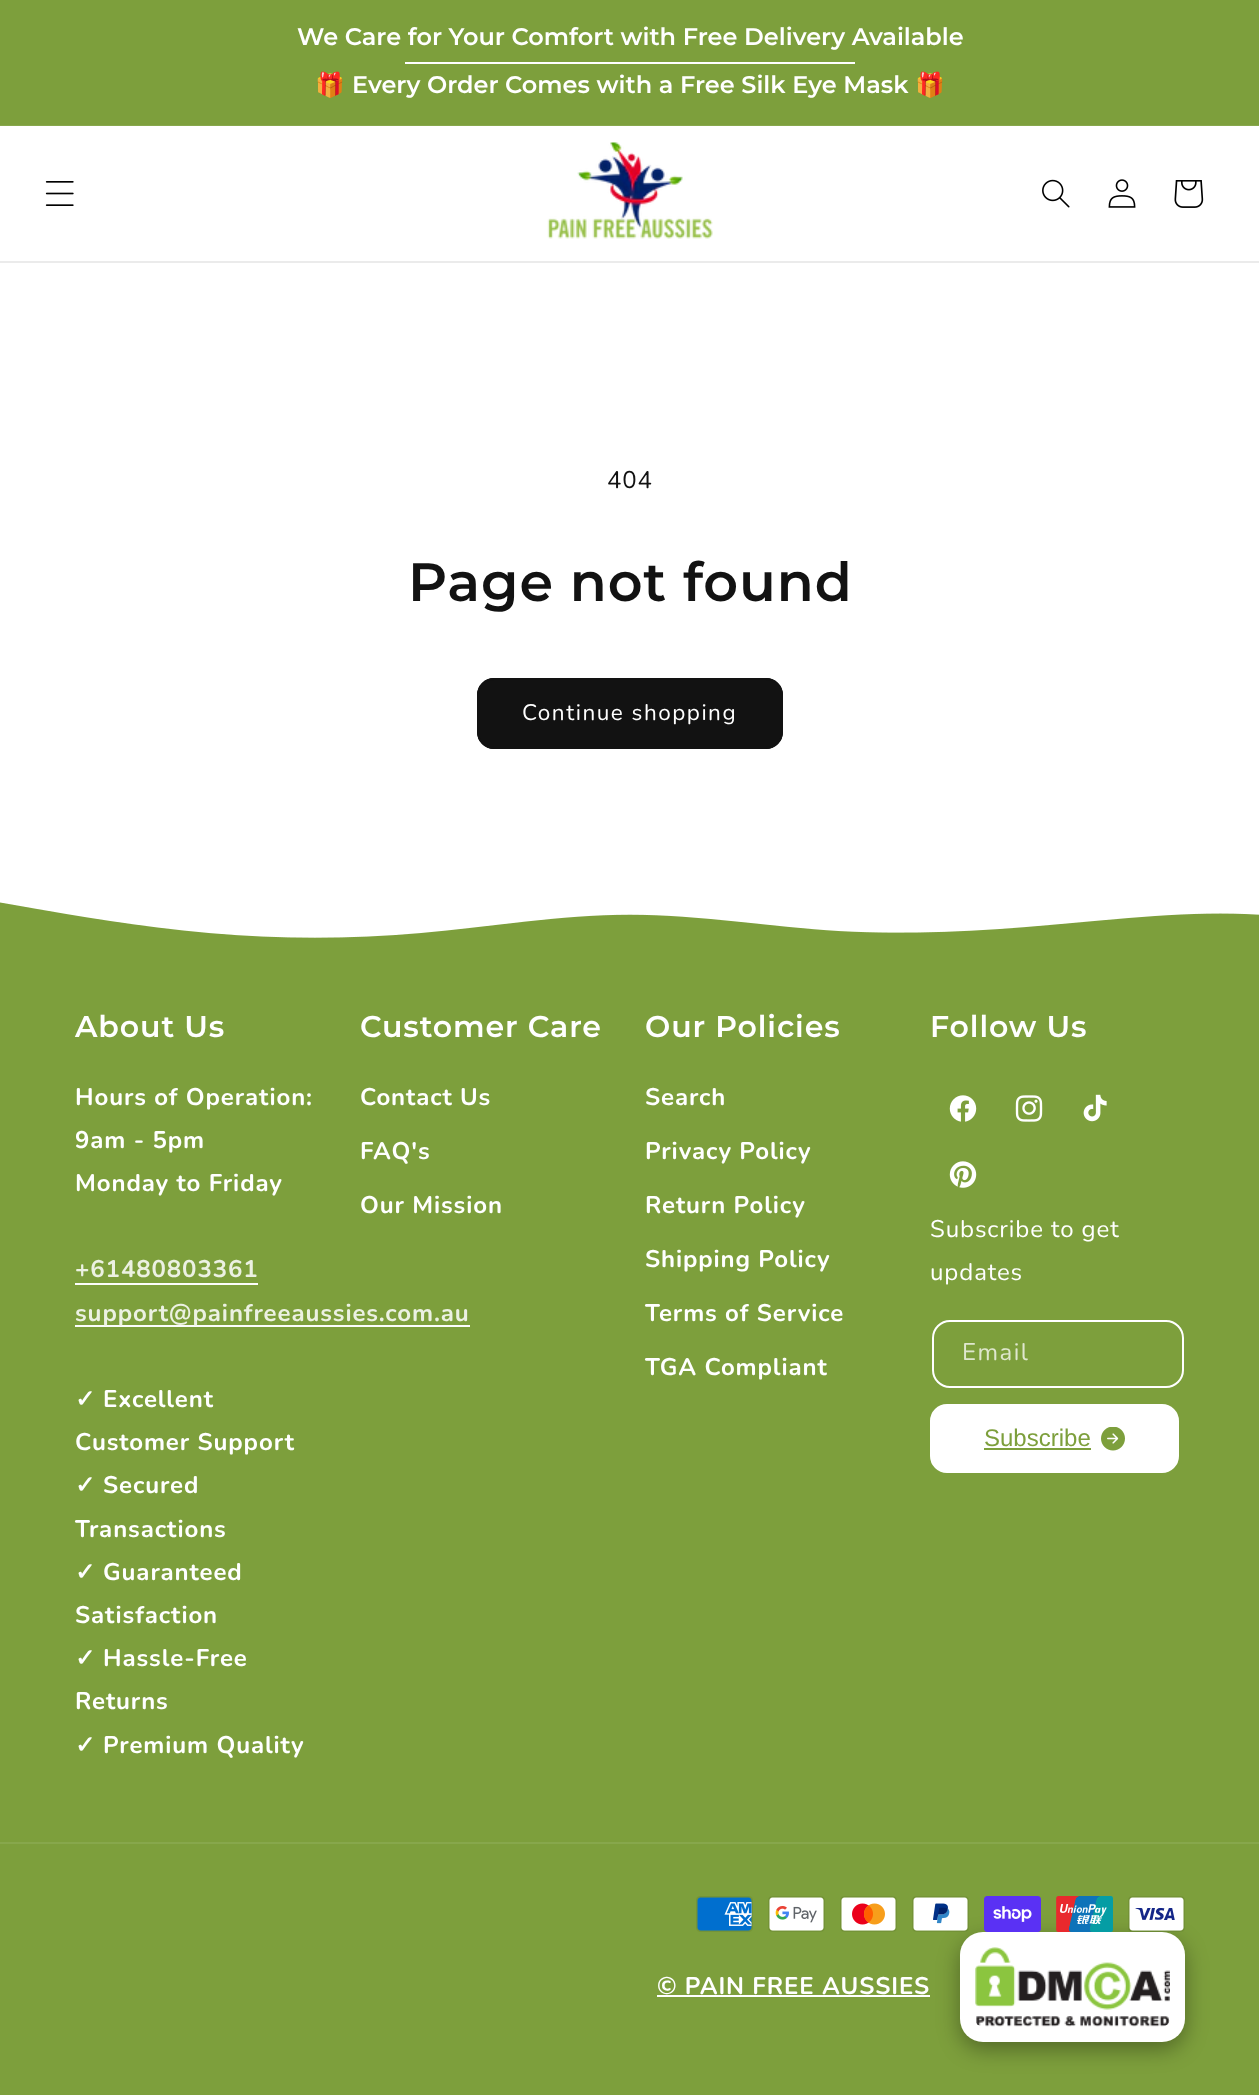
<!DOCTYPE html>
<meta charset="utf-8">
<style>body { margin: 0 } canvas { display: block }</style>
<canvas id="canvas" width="1259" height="2095"></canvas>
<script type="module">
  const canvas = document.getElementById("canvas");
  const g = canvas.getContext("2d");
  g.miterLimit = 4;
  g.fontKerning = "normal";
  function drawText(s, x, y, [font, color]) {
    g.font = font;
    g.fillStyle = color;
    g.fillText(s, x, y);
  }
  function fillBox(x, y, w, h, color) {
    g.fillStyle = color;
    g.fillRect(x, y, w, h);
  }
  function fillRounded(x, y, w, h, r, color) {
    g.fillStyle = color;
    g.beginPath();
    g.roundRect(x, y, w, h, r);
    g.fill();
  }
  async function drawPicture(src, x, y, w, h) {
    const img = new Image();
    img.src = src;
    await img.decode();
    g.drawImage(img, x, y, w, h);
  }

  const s1 = ["600 24px Montserrat", "#FFFFFF"];
  const s2 = ["bold 24px Noto Color Emoji", "#FFFFFF"];
  const s3 = ["24px Nunito", "#121212"];
  const s4 = ["600 54px Montserrat", "#121212"];
  const s5 = ["22.5px Nunito", "#FFFFFF"];
  const s6 = ["600 30px Montserrat", "#FFFFFF"];
  const s7 = ["bold 24px Nunito", "#FFFFFF"];
  const s8 = ["bold 24px Nunito", "#ECF1E2"];
  const s9 = ["bold 24px DejaVu Sans", "#FFFFFF"];
  const s10 = ["24px Nunito", "#FFFFFF"];
  const s11 = ["24px Nunito", "#DFE7CE"];
  const s12 = ["24px Liberation Sans", "#7D9F3C"];

  fillBox(0, 0, 1259, 2095, "#FFFFFF");
  fillBox(0, 0, 1259, 125, "#7D9F3C");
  fillBox(0, 125, 1259, 1, "#87A74C");
  drawText("We Care for Your Comfort with Free Delivery Available", 297, 45, s1);
  fillBox(405, 62, 450, 2, "#FFFFFF");
  drawText("🎁", 315, 93, s2);
  drawText("Every Order Comes with a Free Silk Eye Mask", 352, 93, s1);
  drawText("🎁", 915, 93, s2);
  fillBox(0, 261, 1259, 2, "#EBEBEB");
  await drawPicture("pic1.png", 45, 181, 29, 25);
  await drawPicture("pic2.png", 547, 142, 166, 97);
  await drawPicture("pic3.png", 1042, 179, 28, 29);
  await drawPicture("pic4.png", 1108, 179, 28, 29);
  await drawPicture("pic5.png", 1174, 180, 30, 28);
  g.letterSpacing = "0.9px";
  drawText("404", 607, 488, s3);
  drawText("Page not found", 408, 601, s4);
  fillRounded(477, 678, 306, 71, 17, "#121212");
  g.beginPath();
  g.roundRect(478, 679, 304, 69, 16);
  g.strokeStyle = "#121212";
  g.lineWidth = 2;
  g.stroke();
  g.letterSpacing = "1.5px";
  drawText("Continue shopping", 522, 720, s5);
  await drawPicture("pic6.png", 0, 902, 1259, 51);
  fillBox(0, 953, 1259, 1142, "#7D9F3C");
  g.letterSpacing = "0.9px";
  drawText("About Us", 75, 1037, s6);
  drawText("Hours of Operation:", 75, 1105, s7);
  drawText("9am - 5pm", 75, 1148, s7);
  drawText("Monday to Friday", 75, 1191, s7);
  drawText("+61480803361", 75, 1277, s8);
  fillBox(75, 1283, 183, 2, "#FCFDFB");
  fillBox(75, 1325, 395, 2, "#FCFDFB");
  drawText("support@painfreeaussies.com.au", 75, 1321, s8);
  drawText("✓", 75, 1407, s9);
  drawText("Excellent", 103, 1407, s7);
  drawText("Customer Support", 75, 1450, s7);
  drawText("✓", 75, 1493, s9);
  drawText("Secured", 103, 1493, s7);
  drawText("Transactions", 75, 1537, s7);
  drawText("✓", 75, 1580, s9);
  drawText("Guaranteed", 103, 1580, s7);
  drawText("Satisfaction", 75, 1623, s7);
  drawText("✓", 75, 1666, s9);
  drawText("Hassle-Free", 103, 1666, s7);
  drawText("Returns", 75, 1709, s7);
  drawText("✓", 75, 1753, s9);
  drawText("Premium Quality", 103, 1753, s7);
  drawText("Customer Care", 360, 1037, s6);
  drawText("Contact Us", 360, 1105, s7);
  drawText("FAQ's", 360, 1159, s7);
  drawText("Our Mission", 360, 1213, s7);
  drawText("Our Policies", 645, 1037, s6);
  drawText("Search", 645, 1105, s7);
  drawText("Privacy Policy", 645, 1159, s7);
  drawText("Return Policy", 645, 1213, s7);
  drawText("Shipping Policy", 645, 1267, s7);
  drawText("Terms of Service", 645, 1321, s7);
  drawText("TGA Compliant", 645, 1375, s7);
  drawText("Follow Us", 930, 1037, s6);
  await drawPicture("pic7.png", 949, 1095, 28, 27);
  await drawPicture("pic8.png", 1015, 1095, 28, 27);
  await drawPicture("pic9.png", 1083, 1094, 24, 28);
  await drawPicture("pic10.png", 949, 1161, 28, 27);
  drawText("Subscribe to get", 930, 1237, s10);
  drawText("updates", 930, 1280, s10);
  g.beginPath();
  g.roundRect(933, 1321, 250, 66, 17);
  g.strokeStyle = "#FFFFFF";
  g.stroke();
  g.letterSpacing = "1.5px";
  drawText("Email", 962, 1360, s11);
  g.fillStyle = "#FFFFFF";
  g.beginPath();
  g.roundRect(931, 1405, 247, 67, 16);
  g.fill();
  g.stroke();
  g.letterSpacing = "0px";
  drawText("Subscribe", 984, 1446, s12);
  fillBox(984, 1448, 107, 2, "#7D9F3C");
  await drawPicture("pic11.png", 1101, 1427, 24, 24);
  fillBox(0, 1842, 1259, 2, "#87A74C");
  await drawPicture("pic12.png", 696, 1896, 57, 36);
  await drawPicture("pic13.png", 768, 1896, 57, 36);
  await drawPicture("pic14.png", 840, 1896, 57, 36);
  fillBox(657, 1995, 273, 2, "#FFFFFF");
  g.fillStyle = "rgba(0, 0, 0, 0.35)";
  g.filter = "blur(11px)";
  g.beginPath();
  g.roundRect(960, 1940, 225, 109, 23);
  g.fill();
  g.filter = "none";
  await drawPicture("pic15.png", 912, 1896, 57, 36);
  await drawPicture("pic16.png", 984, 1896, 57, 36);
  await drawPicture("pic17.png", 1056, 1896, 57, 36);
  await drawPicture("pic18.png", 1128, 1896, 57, 36);
  g.letterSpacing = "0.9px";
  drawText("© PAIN FREE AUSSIES", 657, 1994, s7);
  fillRounded(960, 1932, 225, 110, 23, "#FFFFFF");
  await drawPicture("pic19.png", 975, 1947, 195, 80);
</script>
